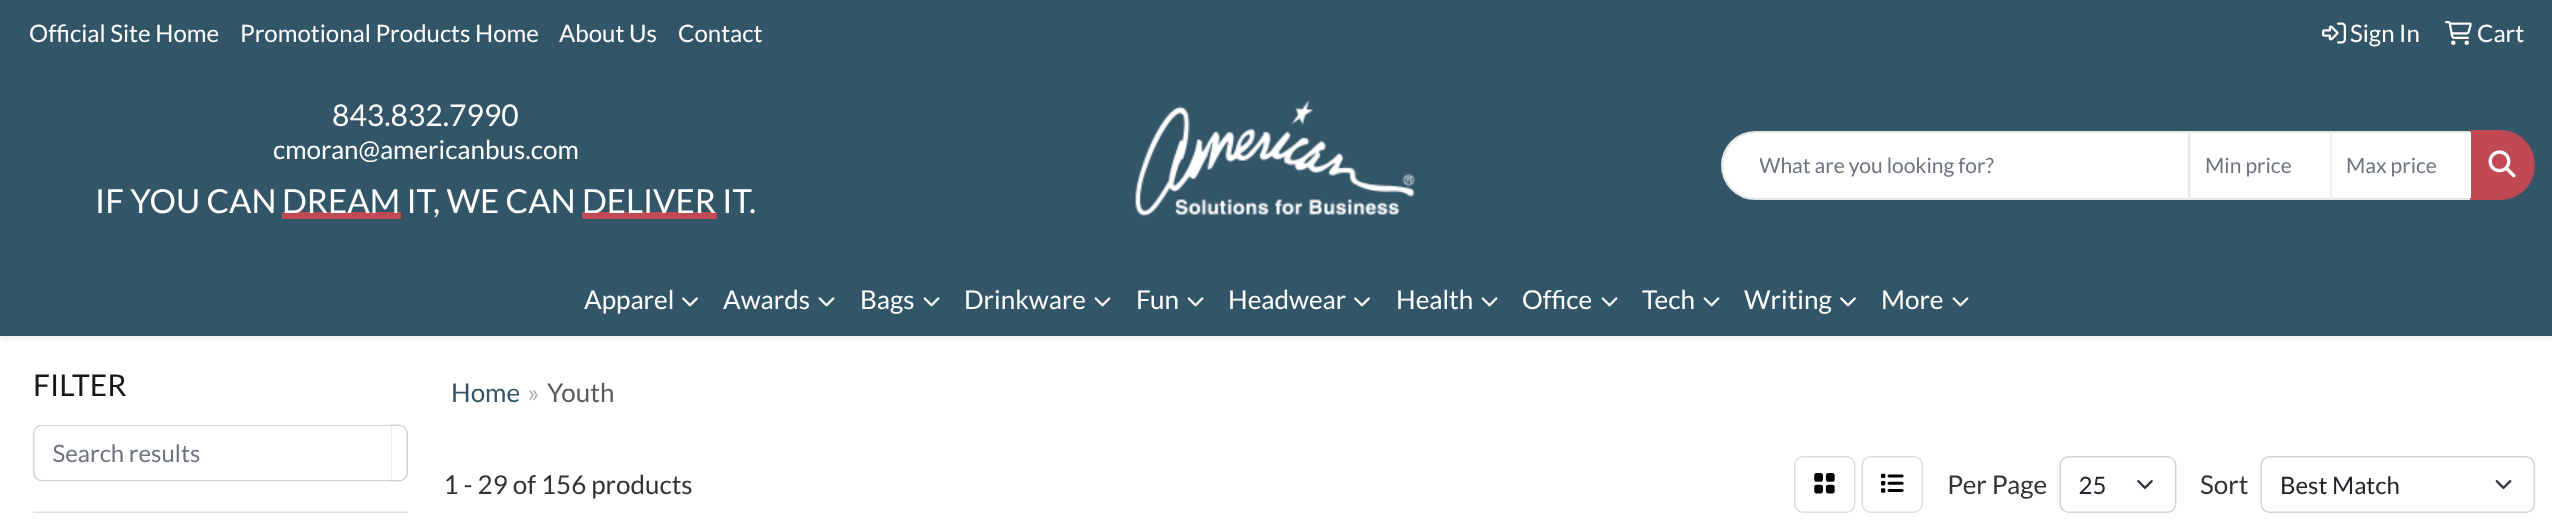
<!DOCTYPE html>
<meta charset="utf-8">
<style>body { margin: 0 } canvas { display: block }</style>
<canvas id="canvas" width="2552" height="525"></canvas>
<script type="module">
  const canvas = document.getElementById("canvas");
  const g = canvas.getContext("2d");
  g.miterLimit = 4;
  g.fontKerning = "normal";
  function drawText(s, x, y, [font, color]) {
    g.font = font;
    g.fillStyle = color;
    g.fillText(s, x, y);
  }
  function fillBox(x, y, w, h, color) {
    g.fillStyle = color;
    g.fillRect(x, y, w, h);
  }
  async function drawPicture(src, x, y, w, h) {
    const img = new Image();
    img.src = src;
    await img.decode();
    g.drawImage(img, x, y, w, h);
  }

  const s1 = ["24px Lato", "#FFFFFF"];
  const s2 = ["30px Lato", "#FFFFFF"];
  const s3 = ["26px Lato", "#FFFFFF"];
  const s4 = ["33px Lato", "#FFFFFF"];
  const s5 = ["21px Lato", "#6C757D"];

  fillBox(0, 0, 2552, 525, "#FFFFFF");
  fillBox(0, 0, 2552, 336, "#325568");
  drawText("Official Site Home", 29, 42, s1);
  drawText("Promotional Products Home", 240, 42, s1);
  drawText("About Us", 559, 42, s1);
  drawText("Contact", 678, 42, s1);
  await drawPicture("pic1.png", 2322, 22, 24, 22);
  drawText("Sign In", 2350, 42, s1);
  await drawPicture("pic2.png", 2445, 21, 27, 24);
  drawText("Cart", 2477, 42, s1);
  drawText("843.832.7990", 332, 126, s2);
  drawText("cmoran@americanbus.com", 273, 159, s3);
  drawText("IF YOU CAN", 95, 213, s4);
  fillBox(282, 212, 119, 7, "#C14953");
  drawText("DREAM IT, WE CAN", 282, 213, s4);
  fillBox(582, 212, 135, 7, "#C14953");
  drawText("DELIVER IT.", 582, 213, s4);
  await drawPicture("pic3.png", 1135, 100, 280, 117);
  g.beginPath();
  g.roundRect(1722, 132, 467, 67, [33.5, 0, 0, 33.5]);
  g.fill();
  g.strokeStyle = "#E4E4E4";
  g.lineWidth = 2;
  g.stroke();
  g.save();
  g.beginPath();
  g.rect(1760, 153, 411, 26);
  g.clip();
  drawText("What are you looking for?", 1759, 173, s5);
  g.restore();
  fillBox(2191, 133, 139, 65, "#FFFFFF");
  fillBox(2189, 131, 283, 2, "#E4E4E4");
  fillBox(2189, 198, 283, 2, "#E4E4E4");
  fillBox(2189, 131, 2, 69, "#EFEFEF");
  drawText("Min price", 2205, 173, s5);
  fillBox(2332, 133, 139, 65, "#FFFFFF");
  fillBox(2330, 131, 2, 69, "#EFEFEF");
  drawText("Max price", 2346, 173, s5);
  g.fillStyle = "#C14953";
  g.beginPath();
  g.roundRect(2471, 132, 63, 66, [0, 33, 33, 0]);
  g.fill();
  g.beginPath();
  g.moveTo(2470, 130);
  g.lineTo(2500, 130);
  g.bezierCurveTo(2520, 130, 2535, 146, 2535, 165);
  g.bezierCurveTo(2535, 184, 2520, 200, 2500, 200);
  g.lineTo(2470, 200);
  g.closePath();
  g.moveTo(2470, 132);
  g.lineTo(2500, 132);
  g.bezierCurveTo(2519, 132, 2534, 147, 2534, 165);
  g.bezierCurveTo(2534, 183, 2519, 198, 2500, 198);
  g.lineTo(2470, 198);
  g.closePath();
  g.fill("evenodd");
  await drawPicture("pic4.png", 2488, 150, 28, 28);
  g.save();
  g.beginPath();
  g.rect(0, 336, 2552, 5);
  g.clip();
  g.fillStyle = "rgba(0, 0, 0, 0.07)";
  g.filter = "blur(3px)";
  g.beginPath();
  g.rect(0, 267, 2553, 72);
  g.fill();
  g.filter = "none";
  g.restore();
  drawText("Apparel", 584, 309, s3);
  await drawPicture("pic5.png", 682, 297, 16, 10);
  drawText("Awards", 723, 309, s3);
  await drawPicture("pic6.png", 818, 297, 17, 10);
  drawText("Bags", 860, 309, s3);
  await drawPicture("pic6.png", 923, 297, 17, 10);
  drawText("Drinkware", 964, 309, s3);
  await drawPicture("pic6.png", 1094, 297, 17, 10);
  drawText("Fun", 1136, 309, s3);
  await drawPicture("pic6.png", 1187, 297, 17, 10);
  drawText("Headwear", 1228, 309, s3);
  await drawPicture("pic5.png", 1354, 297, 16, 10);
  drawText("Health", 1396, 309, s3);
  await drawPicture("pic6.png", 1481, 297, 17, 10);
  drawText("Office", 1522, 309, s3);
  await drawPicture("pic6.png", 1601, 297, 17, 10);
  drawText("Tech", 1642, 309, s3);
  await drawPicture("pic6.png", 1703, 297, 17, 10);
  drawText("Writing", 1744, 309, s3);
  await drawPicture("pic5.png", 1840, 297, 16, 10);
  drawText("More", 1881, 309, s3);
  await drawPicture("pic6.png", 1952, 297, 17, 10);
  await drawPicture("pic7.png", 33, 374, 2502, 139);
</script>
